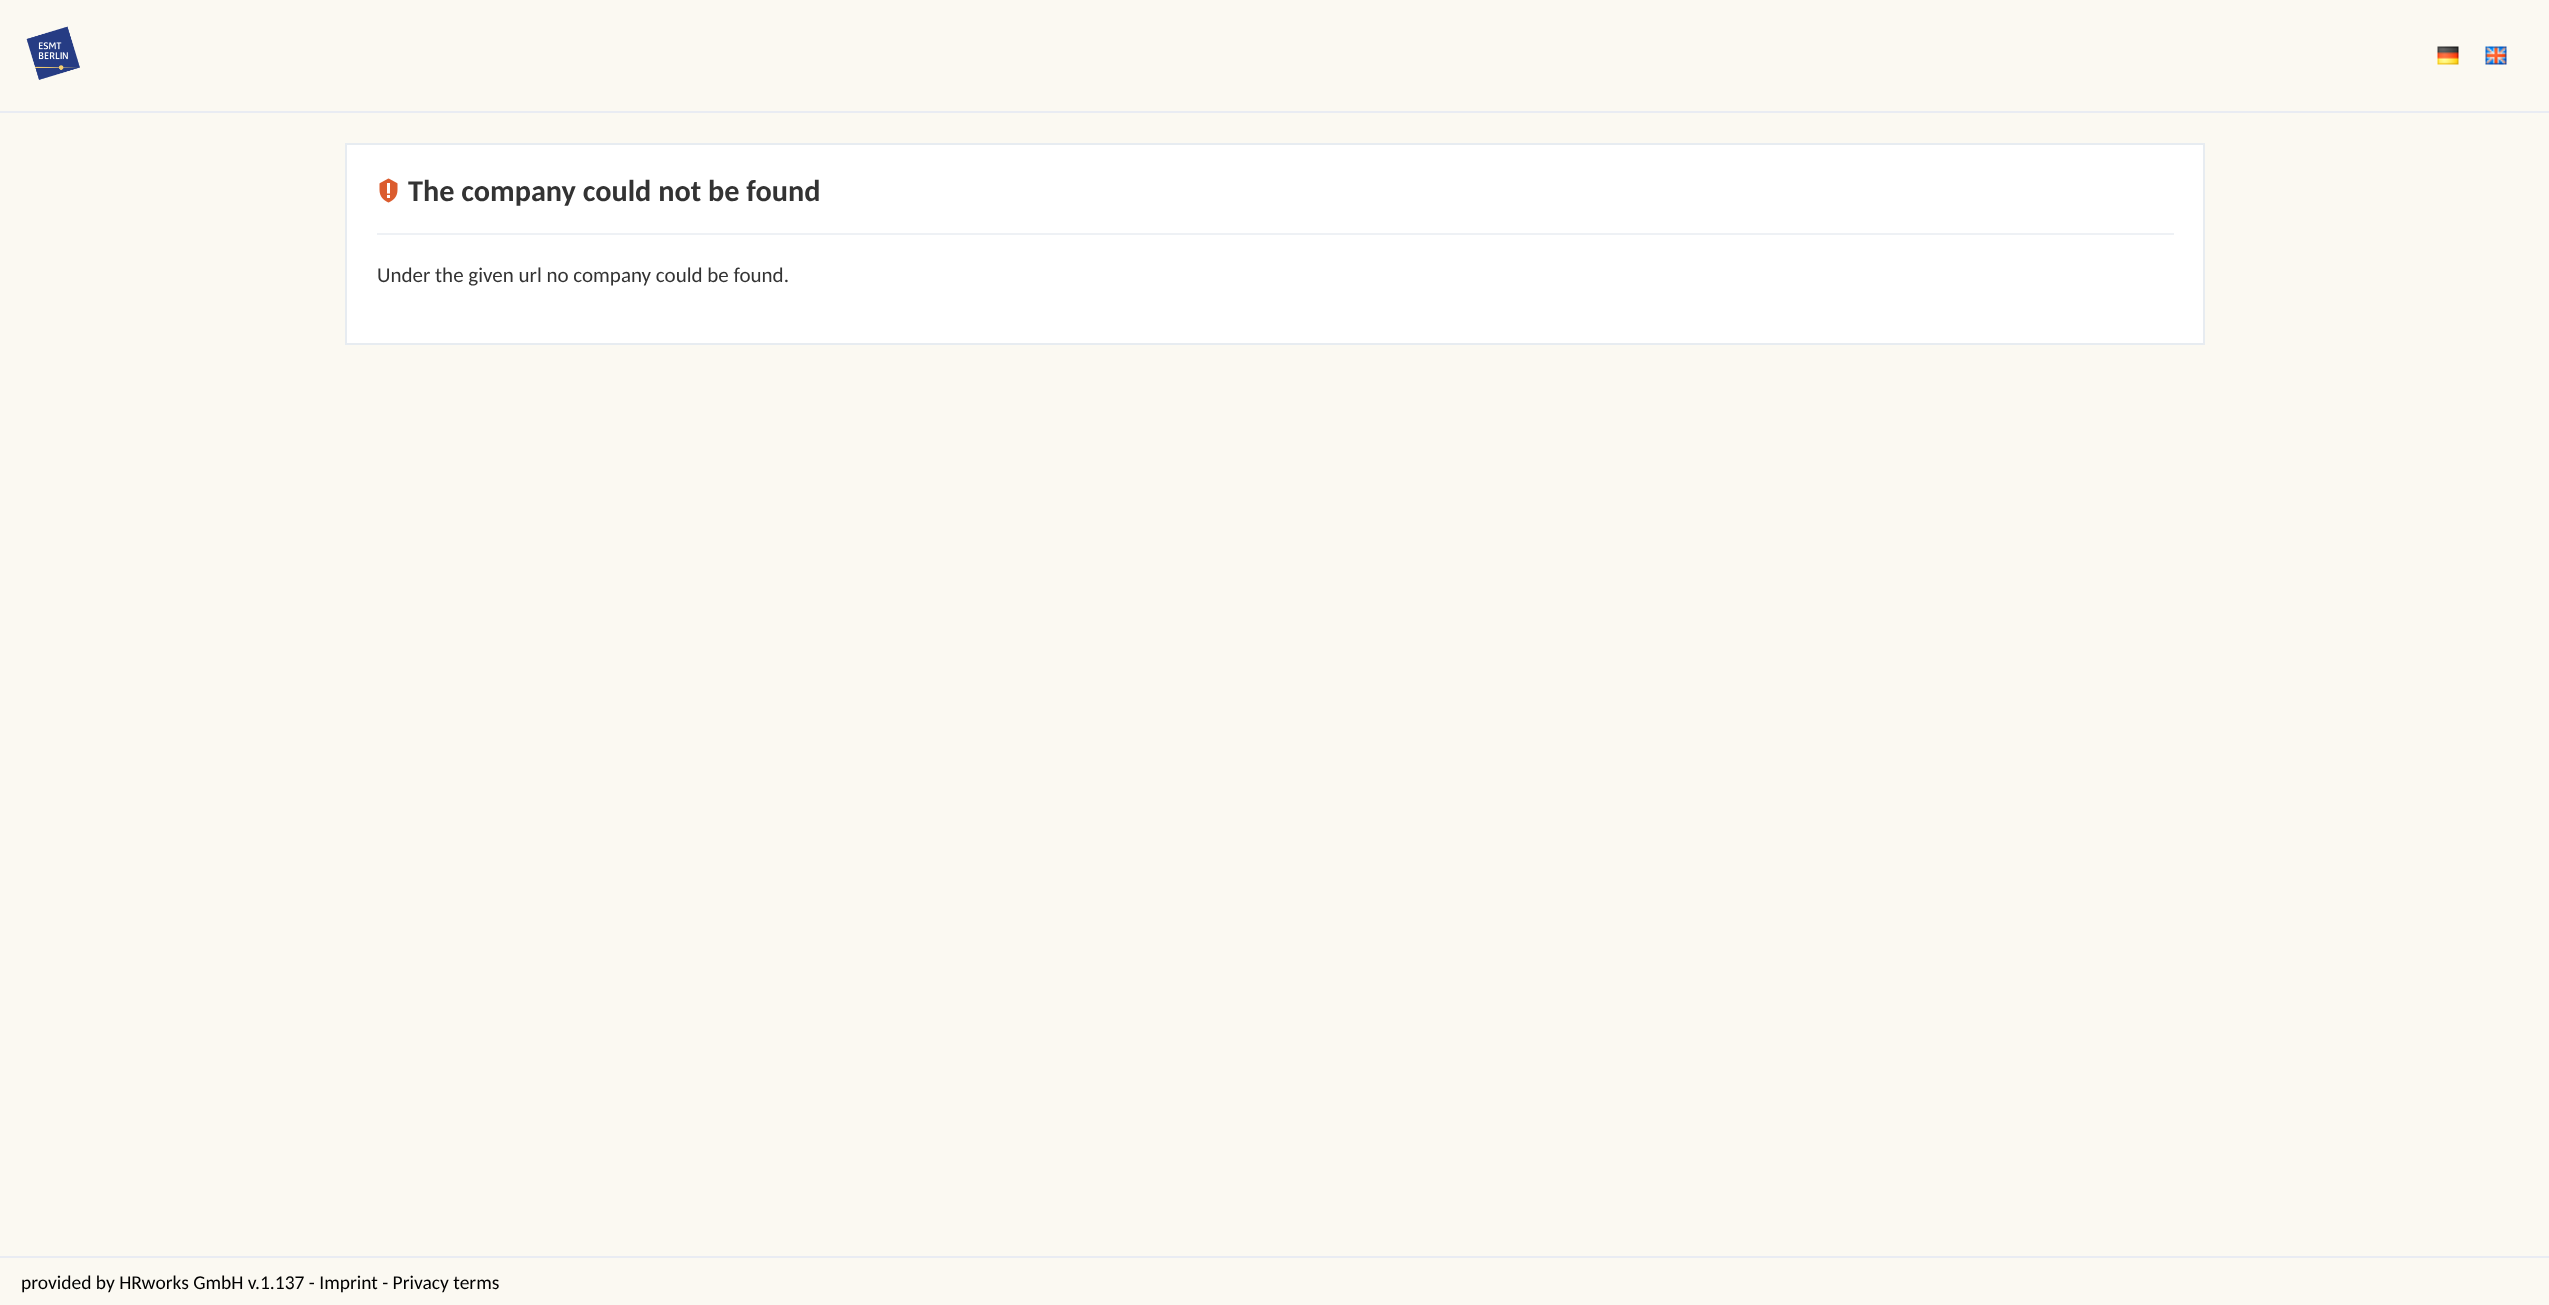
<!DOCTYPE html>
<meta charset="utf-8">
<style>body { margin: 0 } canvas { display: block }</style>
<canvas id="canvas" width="2549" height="1305"></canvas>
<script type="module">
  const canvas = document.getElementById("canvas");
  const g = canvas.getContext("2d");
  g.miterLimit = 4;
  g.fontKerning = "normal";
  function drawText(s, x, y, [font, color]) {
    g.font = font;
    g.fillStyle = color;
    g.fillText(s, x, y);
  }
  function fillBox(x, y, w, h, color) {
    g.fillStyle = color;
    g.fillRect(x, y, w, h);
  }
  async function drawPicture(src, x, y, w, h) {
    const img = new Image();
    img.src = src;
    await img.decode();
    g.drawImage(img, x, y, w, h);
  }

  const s1 = ["bold 30.25px Carlito", "#333333"];
  const s2 = ["21px Carlito", "#333333"];
  const s3 = ["19.5px Carlito", "#000000"];

  fillBox(0, 0, 2549, 1305, "#FBF9F2");
  fillBox(0, 111, 2549, 2, "#E9ECF3");
  await drawPicture("pic1.png", 26, 26, 54, 54);
  await drawPicture("pic2.png", 2437, 46, 22, 19);
  await drawPicture("pic3.png", 2485, 46, 22, 19);
  g.fillStyle = "#FFFFFF";
  g.beginPath();
  g.rect(346, 144, 1858, 200);
  g.fill();
  g.strokeStyle = "#E7ECF1";
  g.lineWidth = 2;
  g.stroke();
  fillBox(377, 233, 1797, 2, "#EEF1F5");
  await drawPicture("pic4.png", 379, 178, 19, 25);
  drawText("The company could not be found", 408, 201, s1);
  drawText("Under the given url no company could be found.", 377, 282, s2);
  fillBox(0, 1256, 2549, 2, "#E9ECF3");
  drawText("provided by HRworks GmbH v.1.137 - Imprint - Privacy terms", 21, 1289, s3);
</script>
